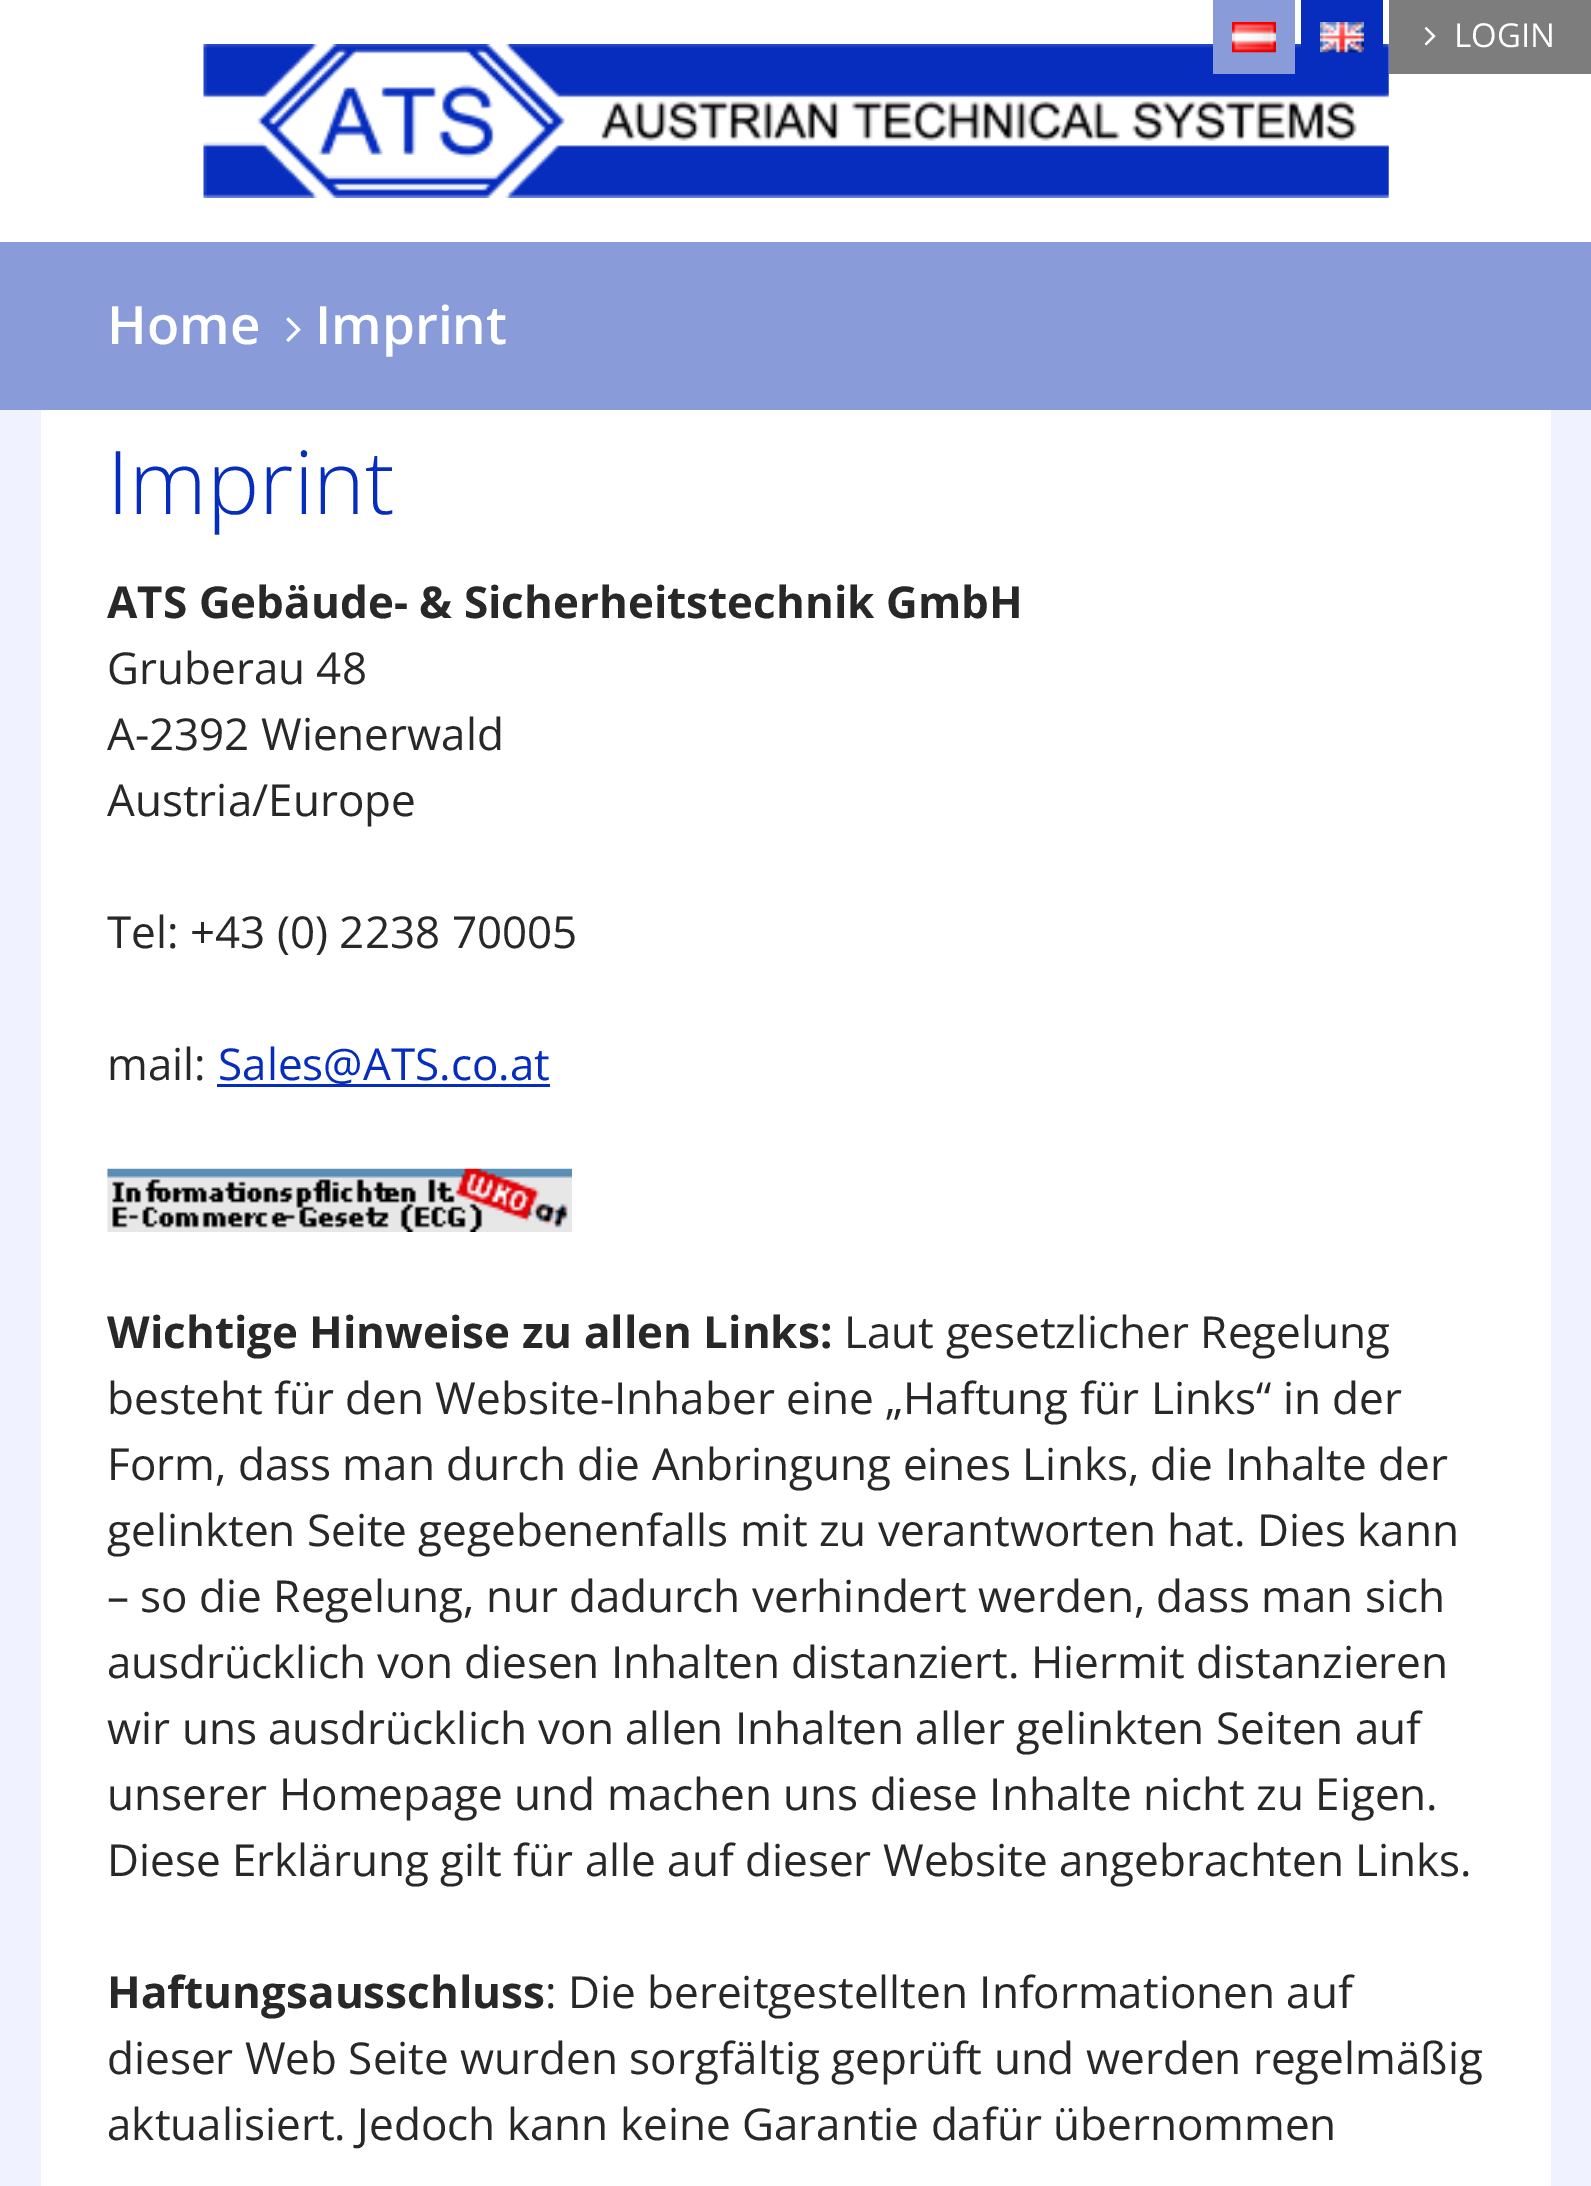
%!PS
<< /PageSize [1591 2186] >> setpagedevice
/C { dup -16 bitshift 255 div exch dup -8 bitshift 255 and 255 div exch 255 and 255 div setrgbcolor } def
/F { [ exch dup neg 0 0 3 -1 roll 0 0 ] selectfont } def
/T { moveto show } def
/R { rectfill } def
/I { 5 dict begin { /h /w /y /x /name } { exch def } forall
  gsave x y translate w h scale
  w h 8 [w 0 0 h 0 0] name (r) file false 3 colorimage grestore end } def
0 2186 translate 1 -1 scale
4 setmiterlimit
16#FFFFFF C
0 0 1591 2186 R
(4.rgb) 203 44 1186 154 I
16#8A9BD9 C
1213 0 82 74 R
(1.rgb) 1232 22 44 31 I
16#062DBE C
1301 0 82 48 R
(2.rgb) 1320 22 44 31 I
16#7D7D7D C
1389 0 202 74 R
(3.rgb) 1424 27 12 19 I
/OpenSans-Regular 33 F
16#FFFFFF C
(LOGIN) 1454 47 T
16#8A9BD9 C
0 242 1591 168 R
/OpenSans-SemiBold 53 F
16#FFFFFF C
(Home) 107 344 T
(5.rgb) 286 317 15 25 I
(Imprint) 315 344 T
16#F0F3FF C
0 410 1591 1776 R
16#FFFFFF C
41 410 1510 1776 R
/OpenSans-Light 88 F
16#062DBE C
(Imprint) 107 514 T
/OpenSans-Bold 44 F
16#282828 C
(ATS Gebäude- & Sicherheitstechnik GmbH) 107 618 T
/OpenSans-Regular 44 F
(Gruberau 48) 107 684 T
(A-2392 Wienerwald) 107 750 T
(Austria/Europe) 107 816 T
(Tel: +43 \(0\) 2238 70005) 107 948 T
(mail:) 107 1080 T
16#062DBE C
(Sales@ATS.co.at) 218 1080 T
217 1084 333 3 R
(6.rgb) 107 1168 465 64 I
/OpenSans-Bold 44 F
16#282828 C
(Wichtige Hinweise zu allen Links:) 107 1348 T
/OpenSans-Regular 44 F
(Laut gesetzlicher Regelung) 844 1348 T
(besteht für den Website-Inhaber eine „Haftung für Links“ in der) 107 1414 T
(Form, dass man durch die Anbringung eines Links, die Inhalte der) 107 1480 T
(gelinkten Seite gegebenenfalls mit zu verantworten hat. Dies kann) 107 1546 T
(– so die Regelung, nur dadurch verhindert werden, dass man sich) 107 1612 T
(ausdrücklich von diesen Inhalten distanziert. Hiermit distanzieren) 107 1678 T
(wir uns ausdrücklich von allen Inhalten aller gelinkten Seiten auf) 107 1744 T
(unserer Homepage und machen uns diese Inhalte nicht zu Eigen.) 107 1810 T
(Diese Erklärung gilt für alle auf dieser Website angebrachten Links.) 107 1876 T
/OpenSans-Bold 44 F
(Haftungsausschluss) 107 2008 T
/OpenSans-Regular 44 F
(: Die bereitgestellten Informationen auf) 545 2008 T
(dieser Web Seite wurden sorgfältig geprüft und werden regelmäßig) 107 2074 T
(aktualisiert. Jedoch kann keine Garantie dafür übernommen) 107 2140 T
showpage
